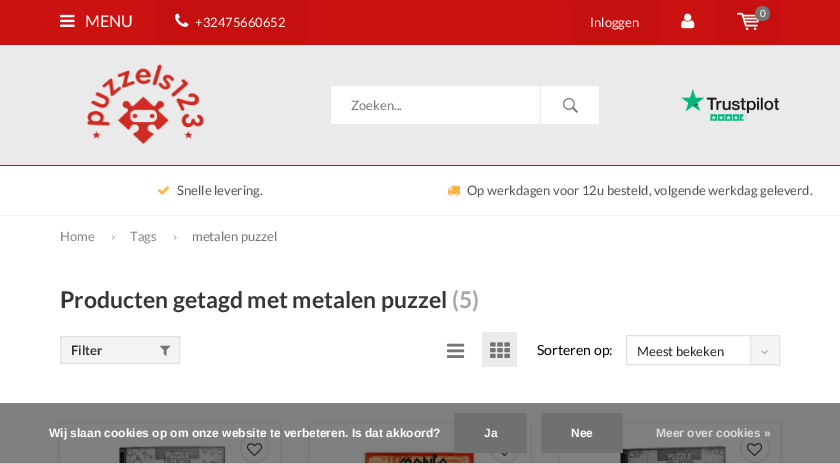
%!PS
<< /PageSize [840 464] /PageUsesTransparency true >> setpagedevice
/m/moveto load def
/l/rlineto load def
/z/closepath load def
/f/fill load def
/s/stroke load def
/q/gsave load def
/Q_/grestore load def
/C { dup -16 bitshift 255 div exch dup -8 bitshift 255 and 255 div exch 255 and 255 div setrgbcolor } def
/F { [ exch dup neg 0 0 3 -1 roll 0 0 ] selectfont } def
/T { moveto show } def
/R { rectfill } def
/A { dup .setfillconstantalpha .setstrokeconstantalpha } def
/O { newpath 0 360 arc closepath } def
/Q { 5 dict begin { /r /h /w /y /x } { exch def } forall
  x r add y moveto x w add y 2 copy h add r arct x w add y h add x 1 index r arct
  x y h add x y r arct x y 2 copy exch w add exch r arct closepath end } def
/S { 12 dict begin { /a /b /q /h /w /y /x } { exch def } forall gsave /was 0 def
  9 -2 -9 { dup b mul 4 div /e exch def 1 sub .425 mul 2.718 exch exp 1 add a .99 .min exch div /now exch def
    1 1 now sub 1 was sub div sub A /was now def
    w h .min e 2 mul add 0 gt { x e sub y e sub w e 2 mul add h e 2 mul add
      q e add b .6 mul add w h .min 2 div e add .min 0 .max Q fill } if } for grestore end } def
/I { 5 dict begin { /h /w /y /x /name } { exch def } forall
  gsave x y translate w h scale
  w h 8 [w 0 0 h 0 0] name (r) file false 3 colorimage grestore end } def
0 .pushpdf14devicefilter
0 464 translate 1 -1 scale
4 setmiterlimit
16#FFFFFF C
0 0 840 464 R
16#808080 C
0 403 840 60 R
16#CC1111 C
0 0 840 45 R
(1.rgb) 60 14 15 13 I
/Lato-Regular 16 F
16#FFFFFF C
(MENU) 85 27 T
16#C61010 C
155 0 151 44 R
(2.rgb) 175 13 14 14 I
/Lato-Regular 13 F
16#FFFFFF C
(+32475660652) 195 27 T
16#C61010 C
570 1 89 43 R
16#FFFFFF C
(Inloggen) 590 27 T
(3.rgb) 681 13 14 16 I
16#C61010 C
717 1 63 43 R
(4.rgb) 737 12 23 19 I
16#777475 C
762.5 13.5 7.5 O f
/Lato-Regular 10 F
16#FFFFFF C
(0) 760 17 T
16#EAEAEA C
0 45 840 120 R
16#CC1111 C
0 165 840 1 R
(5.rgb) 87 64 117 80 I
16#FFFFFF C
331 86 268 38 R
/Lato-Regular 13 F
16#757575 C
(Zoeken...) 351 110 T
16#EBEBEB C
540 85 1 40 R
(6.rgb) 563 98 15 15 I
(7.rgb) 681 89 99 32 I
16#EFEFEF C
0 215 840 1 R
(8.rgb) 157 186 13 9 I
16#525252 C
(Snelle levering.) 177 195 T
(9.rgb) 447 185 13 11 I
(Op werkdagen voor 12u besteld, volgende werkdag geleverd.) 467 195 T
16#858585 C
(Home) 60 241 T
(10.rgb) 112 235 3 5 I
(Tags) 130 241 T
(10.rgb) 174 235 3 5 I
16#757575 C
(metalen puzzel) 192 241 T
/Lato-Bold 23 F
16#363636 C
(Producten getagd met metalen puzzel) 60 308 T
16#A6A6A6 C
(\(5\)) 452 308 T
16#F3F3F3 C
60.5 336.5 m 119 0 l 0 27 l -119 0 l z q f Q_
16#E1E1E1 C
s
/Lato-Bold 13 F
16#363636 C
(Filter) 71 355 T
(11.rgb) 160 345 11 11 I
(12.rgb) 447 343 18 15 I
16#EBEBEB C
482 332 35 35 R
(13.rgb) 490 342 20 16 I
/Lato-Regular 14 F
16#000000 C
(Sorteren op:) 537 355 T
16#E1E1E1 C
626.5 335.5 153 29 rectstroke
/Lato-Regular 13 F
16#212121 C
(Meest bekeken) 637 356 T
0.8 A
16#F3F3F3 C
750 335 30 30 R
16#E1E1E1 C
750.5 335.5 29 29 rectstroke
1 A
(14.rgb) 761 350 7 4 I
q
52 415 m 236 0 l 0 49 l -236 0 l z 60 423 m 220 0 l 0 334 l -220 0 l z eoclip newpath
16#000000 C
61 424 218 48 0 2.5 .2 S
Q_
(15.rgb) 118 445 108 18 I
16#737373 C
255 448 14.5 O s
(16.rgb) 247 443 15 13 I
q
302 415 m 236 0 l 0 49 l -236 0 l z 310 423 m 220 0 l 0 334 l -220 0 l z eoclip newpath
16#000000 C
311 424 218 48 0 2.5 .2 S
Q_
(17.rgb) 362 447 116 16 I
505 448 14.5 O s
(18.rgb) 501 453 7 3 I
q
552 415 m 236 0 l 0 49 l -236 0 l z 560 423 m 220 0 l 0 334 l -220 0 l z eoclip newpath
16#000000 C
561 424 218 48 0 2.5 .2 S
Q_
(19.rgb) 619 445 108 18 I
755 448 14.5 O s
(16.rgb) 747 443 15 13 I
16#CCCCCC C
0 463 840 1 R
/LiberationSans-Bold 12 F
16#FFFFFF C
(Wij slaan cookies op om onze website te verbeteren. Is dat akkoord?) 49 437 T
16#707070 C
454 413 73 40 R
16#FFFFFF C
(Ja) 484 437 T
16#707070 C
541 413 82 40 R
16#FFFFFF C
(Nee) 571 437 T
16#D9D9D9 C
(Meer over cookies ») 656 437 T
.poppdf14devicefilter showpage
